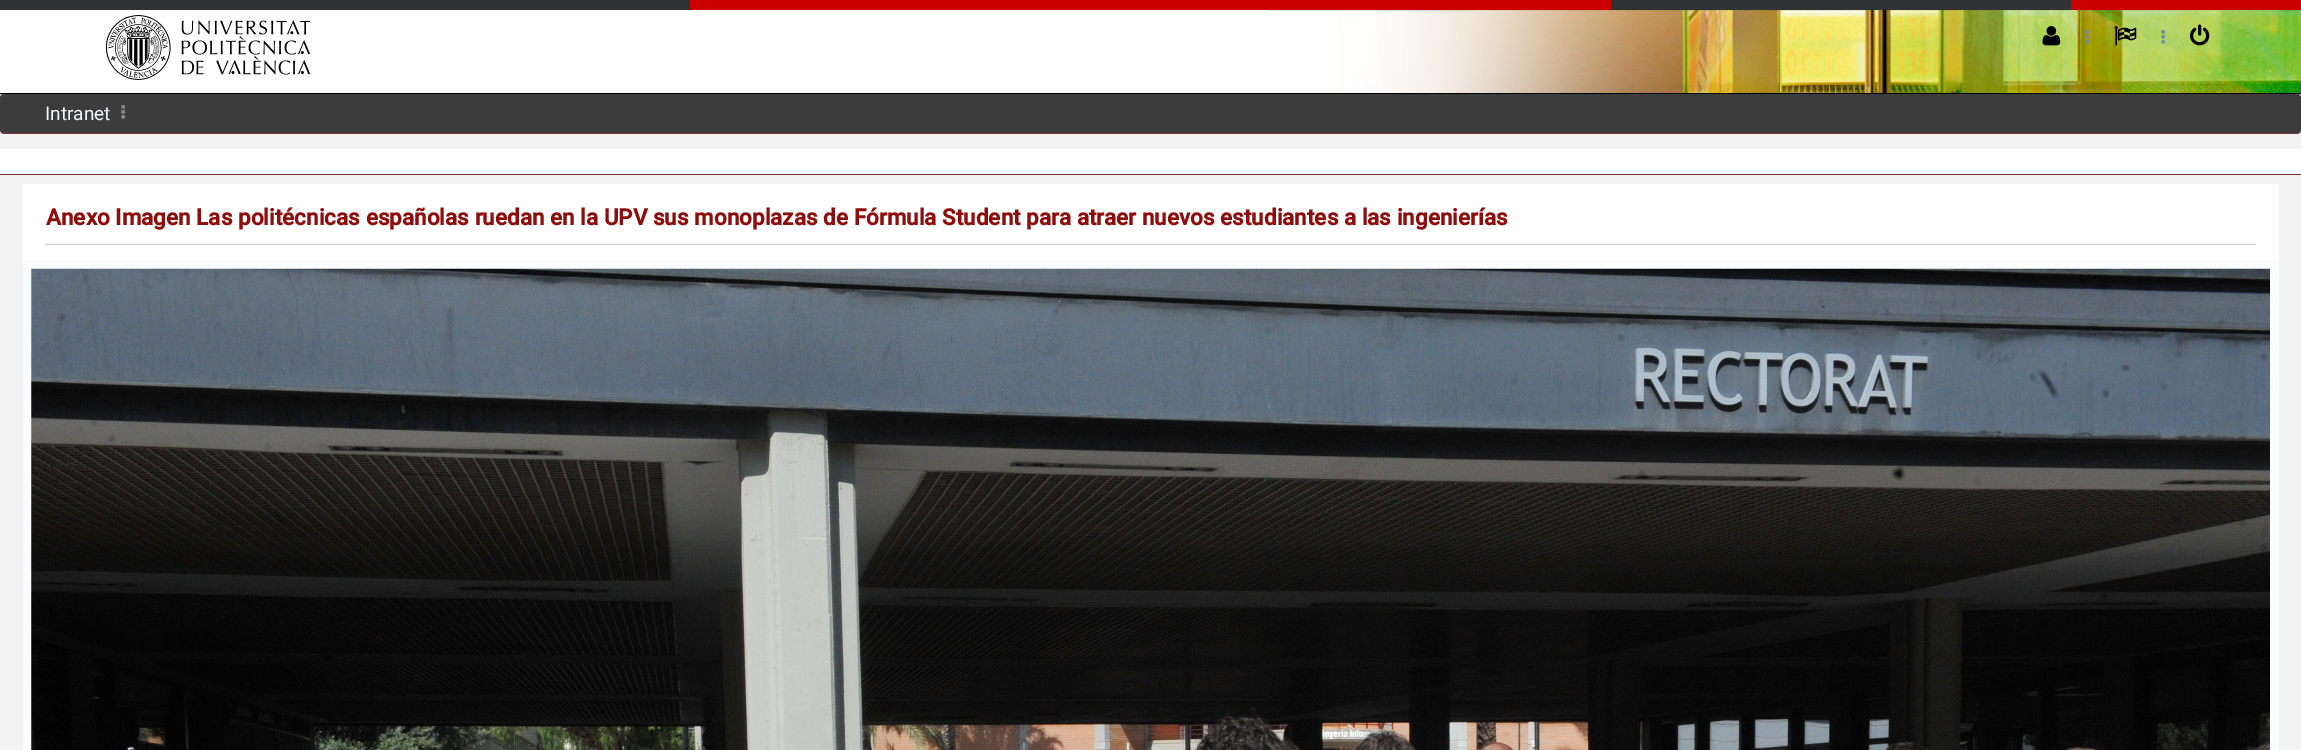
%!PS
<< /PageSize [2301 750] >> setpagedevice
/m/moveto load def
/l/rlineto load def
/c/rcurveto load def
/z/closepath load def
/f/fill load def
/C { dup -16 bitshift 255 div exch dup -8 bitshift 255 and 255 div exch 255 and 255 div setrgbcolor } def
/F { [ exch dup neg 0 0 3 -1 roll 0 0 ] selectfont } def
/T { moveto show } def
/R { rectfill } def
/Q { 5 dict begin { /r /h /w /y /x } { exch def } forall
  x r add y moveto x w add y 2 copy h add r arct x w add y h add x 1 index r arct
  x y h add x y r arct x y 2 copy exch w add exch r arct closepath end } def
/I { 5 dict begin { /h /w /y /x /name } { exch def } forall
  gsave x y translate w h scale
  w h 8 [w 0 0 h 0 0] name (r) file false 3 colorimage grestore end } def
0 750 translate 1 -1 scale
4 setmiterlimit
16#F3F3F3 C
0 0 2301 750 R
16#B8C1C9 C
0 94 2301 1 R
16#FFFFFF C
0 10 1269 83 R
(1.rgb) 1268 10 1033 83 I
16#000000 C
0 93 2301 1 R
16#CC0000 C
690 0 1611 10 R
16#313233 C
0 0 690 10 R
1611 0 460 10 R
(2.rgb) 105 15 206 65 I
(3.rgb) 2042 26 19 20 I
(4.rgb) 2085 30 4 14 I
(5.rgb) 2114 26 23 20 I
(6.rgb) 2161 30 4 14 I
(7.rgb) 2190 24 20 22 I
16#713B3B C
0 129 m 0 1 l 0 2 2 4 4 4 c 2293 0 l 2 0 4 -2 4 -4 c -1 2 -2 2 -3 2 c -2294 0 l -2 0 -4 -1 -4 -3 c z f
16#3C3C3C C
0 94 2301 39 4 Q f
/Roboto-Regular 19 F
16#F1F6F9 C
(Intranet) 45 120 T
(8.rgb) 121 105 4 14 I
16#713B3B C
0 174 2301 1 R
16#FFFFFF C
0 149 2301 25 R
23 184 2256 80 R
16#C3CCD5 C
45 244 2211 1 R
/Roboto-Bold 22.5 F
16#900D0D C
(Anexo Imagen Las politécnicas españolas ruedan en la UPV sus monoplazas de Fórmula Student para atraer nuevos estudiantes a las ingenierías) 46 225 T
16#FBFCFD C
23 260 2256 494 4 Q f
(9.rgb) 31 268 2239 482 I
showpage
